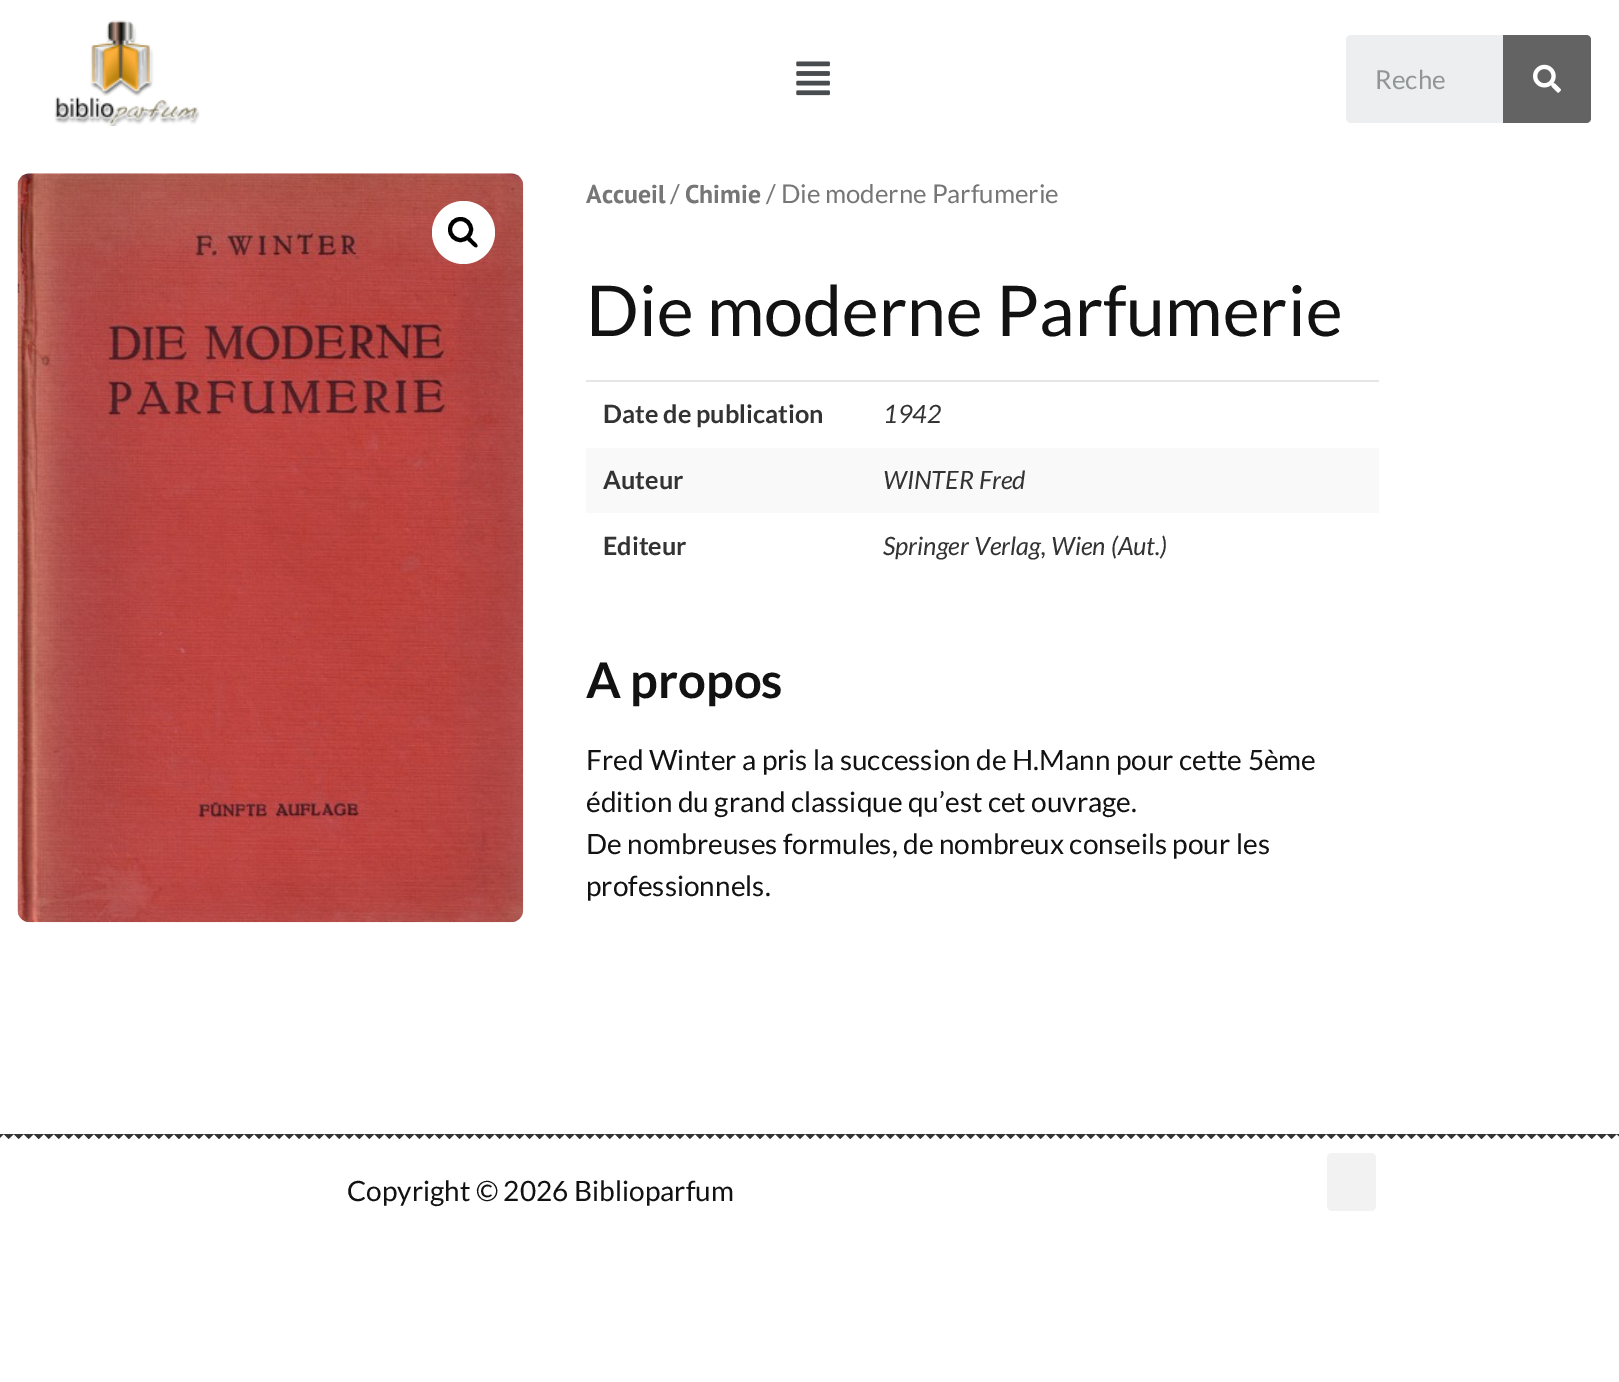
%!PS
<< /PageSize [1619 1382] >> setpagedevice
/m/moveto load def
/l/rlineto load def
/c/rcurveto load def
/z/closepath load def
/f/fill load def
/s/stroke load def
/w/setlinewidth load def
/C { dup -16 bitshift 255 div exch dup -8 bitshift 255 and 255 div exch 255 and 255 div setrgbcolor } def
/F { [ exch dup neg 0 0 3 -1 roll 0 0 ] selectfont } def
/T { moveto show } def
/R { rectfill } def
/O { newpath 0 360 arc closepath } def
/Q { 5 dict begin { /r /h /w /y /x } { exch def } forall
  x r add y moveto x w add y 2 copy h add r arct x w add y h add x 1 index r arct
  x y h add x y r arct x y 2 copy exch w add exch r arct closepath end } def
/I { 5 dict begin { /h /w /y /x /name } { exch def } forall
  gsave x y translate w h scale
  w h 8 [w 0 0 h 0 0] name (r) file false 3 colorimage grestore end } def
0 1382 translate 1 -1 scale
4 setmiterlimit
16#FFFFFF C
0 0 1619 1382 R
(1.rgb) 54 20 146 106 I
(2.rgb) 796 61 34 35 I
16#ECEEEF C
1346 35 245 88 5 Q f
/Lato-Regular 26 F
16#919597 C
(Reche) 1375 89 T
16#636363 C
1503 35 m 83 0 l 3 0 5 2 5 5 c 0 78 l 0 3 -2 5 -5 5 c -83 0 l z f
(3.rgb) 1533 64 28 29 I
(4.rgb) 17 173 507 750 I
16#FFFFFF C
463.5 232.5 31.5 O f
16#000000 C
4 w
460.5 229.5 10.5 O s
467 237 m 2 -2 5 2.5 6 3.5 c 1 1 6 4.5 4 6.5 c -2 1.5 -5.5 -3 -6.5 -4 c -1 -1 -5.5 -4 -3.5 -6 c z f
/PTSans-Bold 25.75 F
16#767676 C
(Accueil) 586 203 T
/Lato-Regular 25.75 F
(/) 670 203 T
/PTSans-Bold 25.75 F
(Chimie) 685 203 T
/Lato-Regular 25.75 F
(/ Die moderne Parfumerie) 766 203 T
/Lato-Regular 70 F
16#121212 C
(Die moderne Parfumerie) 586 336 T
16#E6E6E6 C
586 380 793 2 R
/Lato-Bold 25.25 F
16#333333 C
(Date de publication) 603 423 T
/Lato-Italic 25.25 F
(1942) 883 423 T
16#F9F9F9 C
586 448 793 65 R
/Lato-Bold 25.25 F
16#333333 C
(Auteur) 603 489 T
/Lato-Italic 25.25 F
(WINTER Fred) 883 489 T
/Lato-Bold 25.25 F
(Editeur) 603 555 T
/Lato-Italic 25.25 F
(Springer Verlag, Wien \(Aut.\)) 883 555 T
/Lato-Bold 49 F
16#121212 C
(A propos) 586 698 T
/Lato-Regular 28 F
(Fred Winter a pris la succession de H.Mann pour cette 5ème) 586 770 T
(édition du grand classique qu’est cet ouvrage.) 586 812 T
(De nombreuses formules, de nombreux conseils pour les) 586 854 T
(professionnels.) 586 896 T
(5.rgb) 0 1134 1619 5 I
(Copyright © 2026 Biblioparfum) 347 1201 T
16#F2F2F2 C
1327 1153 49 58 5 Q f
showpage
